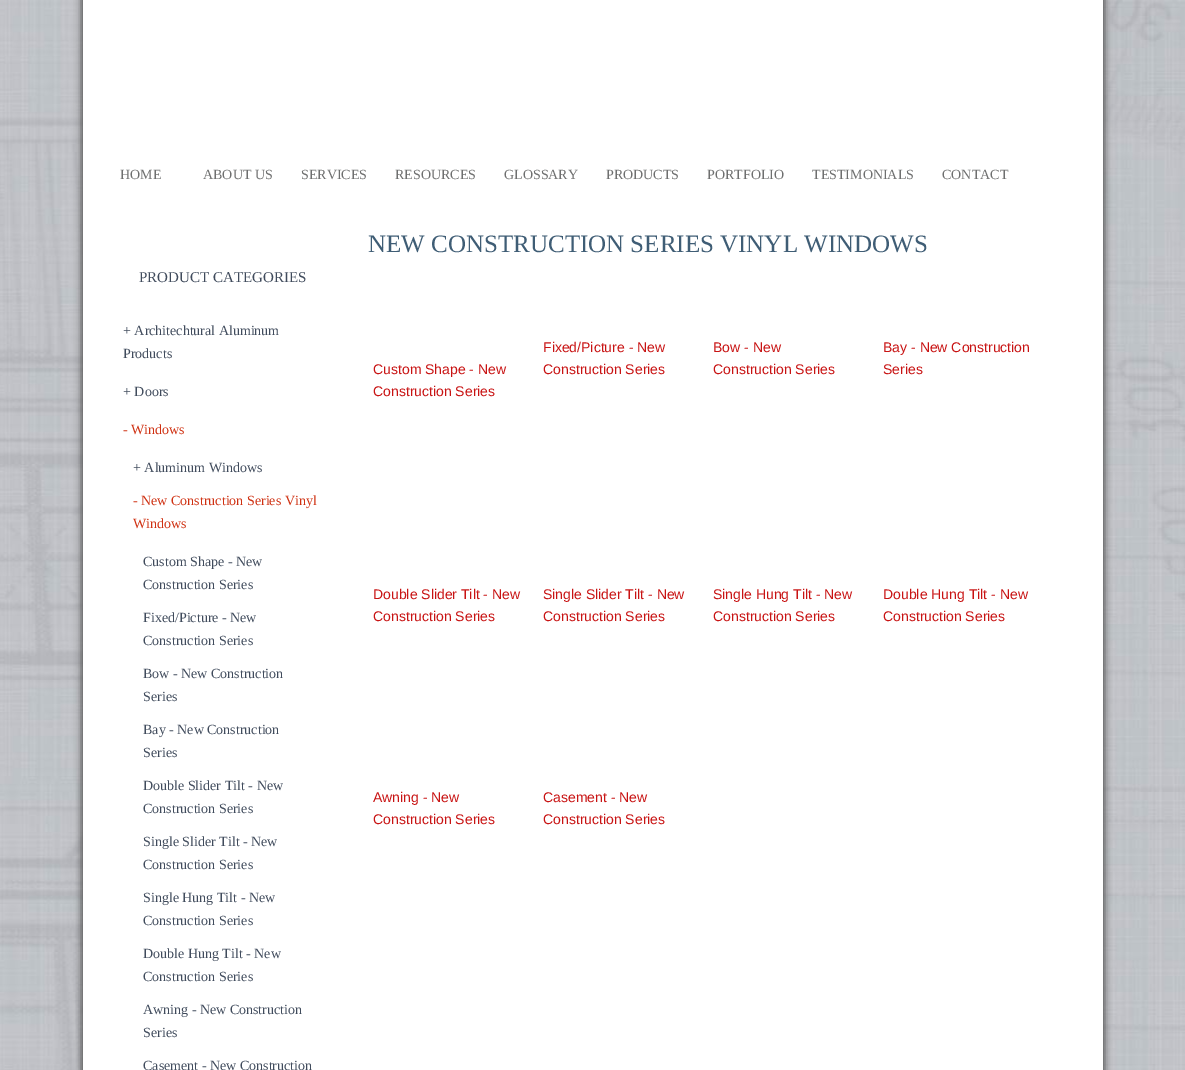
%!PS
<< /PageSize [1185 1070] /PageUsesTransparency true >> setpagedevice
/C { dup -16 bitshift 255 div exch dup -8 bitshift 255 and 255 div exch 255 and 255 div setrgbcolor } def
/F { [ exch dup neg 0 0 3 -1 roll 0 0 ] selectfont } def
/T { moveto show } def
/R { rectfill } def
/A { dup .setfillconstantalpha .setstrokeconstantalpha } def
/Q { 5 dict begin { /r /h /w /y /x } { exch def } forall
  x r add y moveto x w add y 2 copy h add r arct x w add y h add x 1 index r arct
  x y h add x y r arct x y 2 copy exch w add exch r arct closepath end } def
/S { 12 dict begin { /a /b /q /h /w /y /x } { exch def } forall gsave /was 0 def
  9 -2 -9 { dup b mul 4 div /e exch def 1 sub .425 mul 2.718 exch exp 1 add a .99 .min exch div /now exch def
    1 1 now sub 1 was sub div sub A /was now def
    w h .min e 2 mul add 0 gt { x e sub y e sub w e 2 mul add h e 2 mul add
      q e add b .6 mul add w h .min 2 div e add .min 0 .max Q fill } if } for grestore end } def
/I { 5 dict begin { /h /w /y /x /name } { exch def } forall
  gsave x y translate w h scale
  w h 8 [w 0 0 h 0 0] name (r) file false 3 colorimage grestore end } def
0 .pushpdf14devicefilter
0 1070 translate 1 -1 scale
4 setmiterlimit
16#FFFFFF C
0 0 1185 1070 R
(1.rgb) 0 0 1185 1070 I
16#565656 C
81 -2 1024 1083 0 3.5 1 S
16#FFFFFF C
83 0 1020 1070 R
/LiberationSerif-Regular 14 F
16#6E6F6F C
(HOME) 120 179 T
(ABOUT US) 203 179 T
(SERVICES) 301 179 T
(RESOURCES) 395 179 T
(GLOSSARY) 504 179 T
(PRODUCTS) 606 179 T
(PORTFOLIO) 707 179 T
(TESTIMONIALS) 812 179 T
(CONTACT) 942 179 T
/LiberationSerif-Regular 15 F
16#404B5C C
(PRODUCT CATEGORIES) 139 282 T
/LiberationSerif-Regular 14 F
(+ Architechtural Aluminum) 123 335 T
(Products) 123 358 T
(+ Doors) 123 396 T
16#CF3011 C
(- Windows) 123 434 T
16#404B5C C
(+ Aluminum Windows) 133 472 T
16#CF3011 C
(- New Construction Series Vinyl) 133 505 T
(Windows) 133 528 T
16#404B5C C
(Custom Shape - New) 143 566 T
(Construction Series) 143 589 T
(Fixed/Picture - New) 143 622 T
(Construction Series) 143 645 T
(Bow - New Construction) 143 678 T
(Series) 143 701 T
(Bay - New Construction) 143 734 T
(Series) 143 757 T
(Double Slider Tilt - New) 143 790 T
(Construction Series) 143 813 T
(Single Slider Tilt - New) 143 846 T
(Construction Series) 143 869 T
(Single Hung Tilt - New) 143 902 T
(Construction Series) 143 925 T
(Double Hung Tilt - New) 143 958 T
(Construction Series) 143 981 T
(Awning - New Construction) 143 1014 T
(Series) 143 1037 T
(Casement - New Construction) 143 1070 T
/LiberationSerif-Regular 25 F
16#3F5D75 C
(NEW CONSTRUCTION SERIES VINYL WINDOWS) 368 252 T
/LiberationSans-Regular 14 F
16#C81313 C
(Fixed/Picture - New) 543 352 T
(Construction Series) 543 374 T
(Bow - New) 713 352 T
(Construction Series) 713 374 T
(Bay - New Construction) 883 352 T
(Series) 883 374 T
(Custom Shape - New) 373 374 T
(Construction Series) 373 396 T
(Double Slider Tilt - New) 373 599 T
(Construction Series) 373 621 T
(Single Slider Tilt - New) 543 599 T
(Construction Series) 543 621 T
(Single Hung Tilt - New) 713 599 T
(Construction Series) 713 621 T
(Double Hung Tilt - New) 883 599 T
(Construction Series) 883 621 T
(Awning - New) 373 802 T
(Construction Series) 373 824 T
(Casement - New) 543 802 T
(Construction Series) 543 824 T
.poppdf14devicefilter showpage
